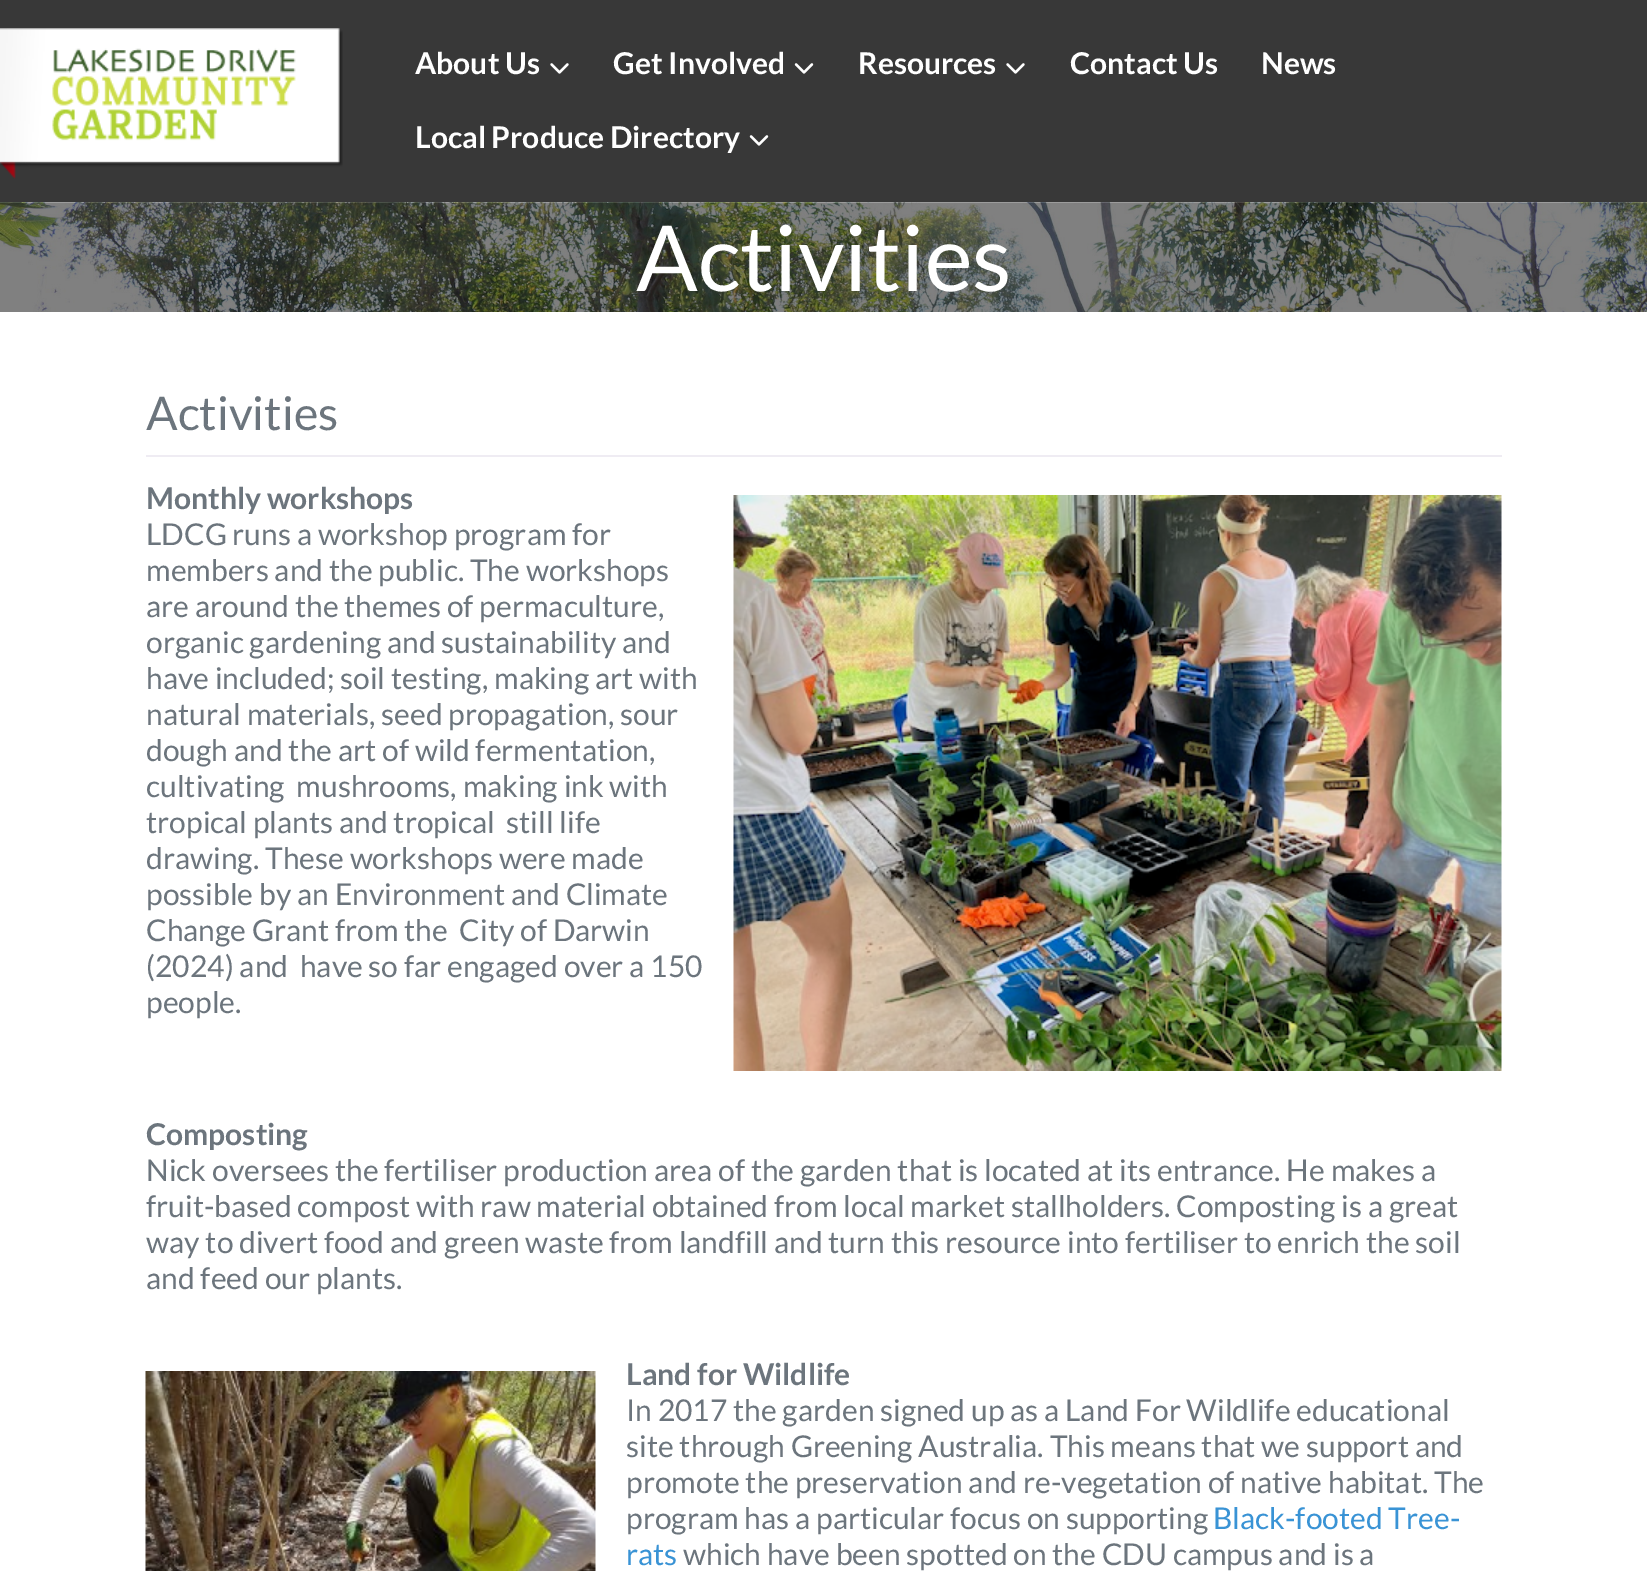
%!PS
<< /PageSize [1647 1571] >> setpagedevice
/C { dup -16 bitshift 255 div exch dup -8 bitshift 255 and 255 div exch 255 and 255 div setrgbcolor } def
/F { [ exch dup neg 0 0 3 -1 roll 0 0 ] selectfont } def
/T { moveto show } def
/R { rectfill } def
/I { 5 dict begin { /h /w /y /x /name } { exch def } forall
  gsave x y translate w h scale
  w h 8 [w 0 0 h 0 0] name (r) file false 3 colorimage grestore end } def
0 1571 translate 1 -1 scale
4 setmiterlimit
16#FFFFFF C
0 0 1647 1571 R
16#383838 C
0 0 1647 203 R
(1.rgb) 0 28 343 151 I
/Lato-Bold 30 F
16#FFFFFF C
(About Us) 415 74 T
(2.rgb) 550 63 19 11 I
(Get Involved) 613 74 T
(3.rgb) 794 63 20 11 I
(Resources) 858 74 T
(2.rgb) 1006 63 19 11 I
(Contact Us) 1070 74 T
(News) 1261 74 T
(Local Produce Directory) 415 148 T
(3.rgb) 749 135 20 11 I
(4.rgb) 0 202 1647 110 I
/Lato-Regular 91 F
(Activities) 636 291 T
16#EFECF3 C
146 455 1356 2 R
/Lato-Regular 46.5 F
16#6C757D C
(Activities) 146 430 T
/Lato-Bold 30 F
(Monthly workshops) 146 509 T
/Lato-Regular 30 F
(LDCG runs a workshop program for) 146 545 T
(members and the public. The workshops) 146 581 T
(are around the themes of permaculture,) 146 617 T
(organic gardening and sustainability and) 146 653 T
(have included; soil testing, making art with) 146 689 T
(natural materials, seed propagation, sour) 146 725 T
(dough and the art of wild fermentation,) 146 761 T
(cultivating  mushrooms, making ink with) 146 797 T
(tropical plants and tropical  still life) 146 833 T
(drawing. These workshops were made) 146 869 T
(possible by an Environment and Climate) 146 905 T
(Change Grant from the  City of Darwin) 146 941 T
(\(2024\) and  have so far engaged over a 150) 146 977 T
(people.) 146 1013 T
(5.rgb) 733 495 769 576 I
/Lato-Bold 30 F
(Composting) 146 1145 T
/Lato-Regular 30 F
(Nick oversees the fertiliser production area of the garden that is located at its entrance. He makes a) 146 1181 T
(fruit-based compost with raw material obtained from local market stallholders. Composting is a great) 146 1217 T
(way to divert food and green waste from landfill and turn this resource into fertiliser to enrich the soil) 146 1253 T
(and feed our plants.) 146 1289 T
(6.rgb) 145 1371 451 200 I
/Lato-Bold 30 F
(Land for Wildlife) 626 1385 T
/Lato-Regular 30 F
(In 2017 the garden signed up as a Land For Wildlife educational) 626 1421 T
(site through Greening Australia. This means that we support and) 626 1457 T
(promote the preservation and re-vegetation of native habitat. The) 626 1493 T
(program has a particular focus on supporting) 626 1529 T
16#3993D5 C
(Black-footed Tree-) 1213 1529 T
(rats) 626 1565 T
16#6C757D C
(which have been spotted on the CDU campus and is a) 683 1565 T
showpage
